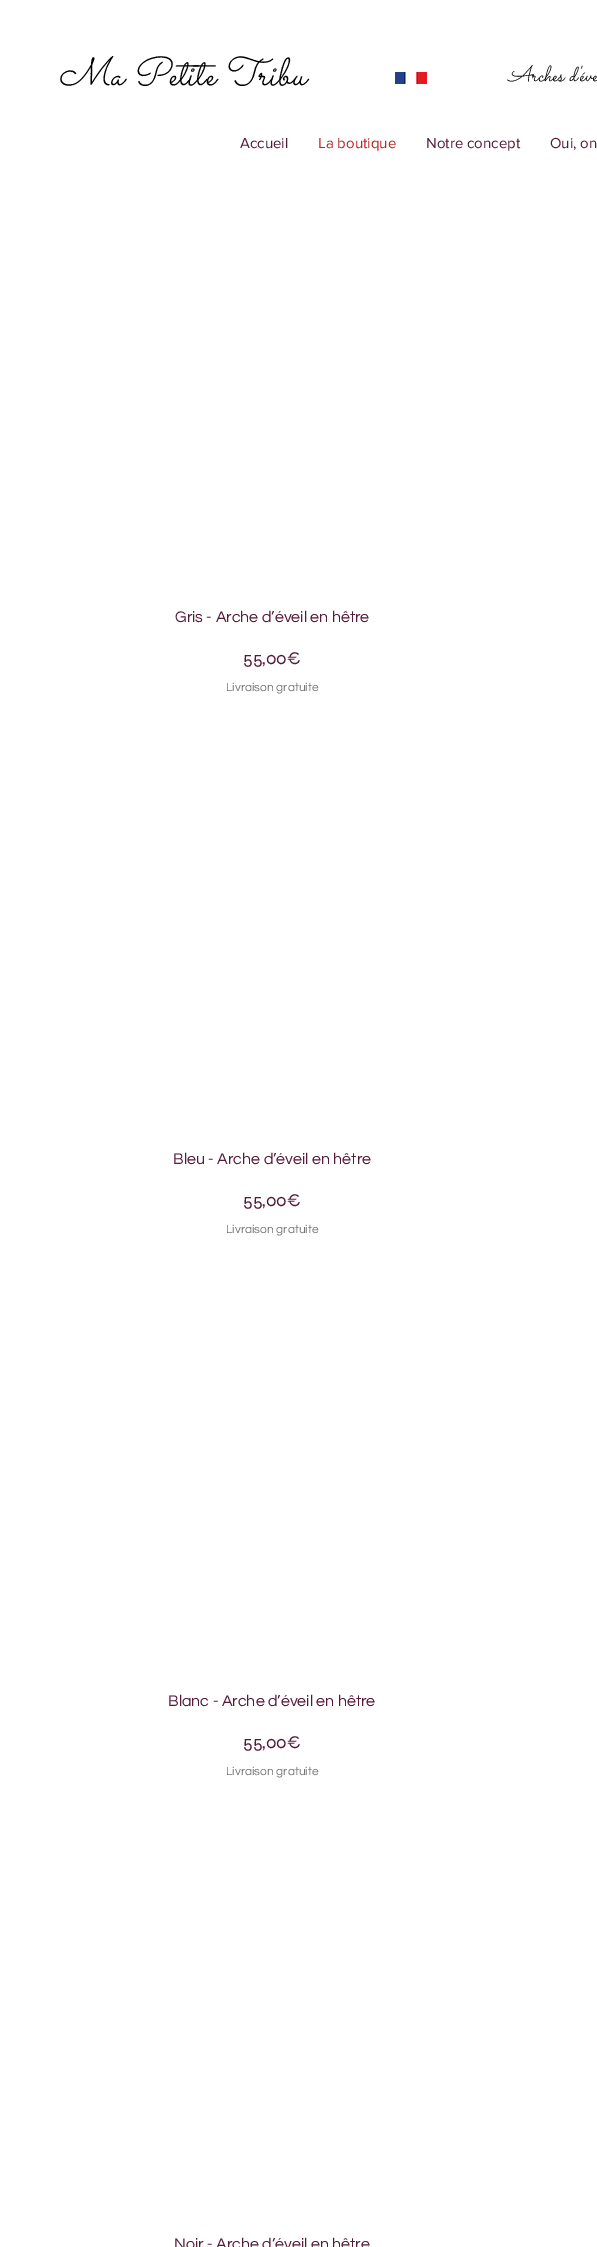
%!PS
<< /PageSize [597 2247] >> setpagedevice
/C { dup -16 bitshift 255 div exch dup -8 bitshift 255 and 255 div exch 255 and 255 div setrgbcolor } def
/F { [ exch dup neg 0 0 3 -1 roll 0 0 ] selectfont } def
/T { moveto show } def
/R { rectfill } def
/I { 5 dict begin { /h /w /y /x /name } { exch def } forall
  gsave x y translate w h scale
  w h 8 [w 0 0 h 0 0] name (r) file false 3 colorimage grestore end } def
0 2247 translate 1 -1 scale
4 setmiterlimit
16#FFFFFF C
0 0 597 2247 R
/Sacramento-Italic 39 F
16#000000 C
(Ma Petite Tribu) 58 85 T
(1.rgb) 395 72 32 12 I
/Sacramento-Italic 22 F
(Arches d'éve) 508 81 T
/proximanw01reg-Regular 15 F
16#551A3A C
(Accueil) 240 148 T
16#BB2423 C
(La boutique) 318 148 T
16#551A3A C
(Notre concept) 426 148 T
(Oui, on) 550 148 T
/Questrial-Regular 16 F
(Gris - Arche d’éveil en hêtre) 175 622 T
/Syne-Regular 18 F
(55,00€) 243 664 T
/Questrial-Regular 12 F
16#757575 C
(Livraison gratuite) 226 691 T
/Questrial-Regular 16 F
16#551A3A C
(Bleu - Arche d’éveil en hêtre) 173 1164 T
/Syne-Regular 18 F
(55,00€) 243 1206 T
/Questrial-Regular 12 F
16#757575 C
(Livraison gratuite) 226 1233 T
/Questrial-Regular 16 F
16#551A3A C
(Blanc - Arche d’éveil en hêtre) 168 1706 T
/Syne-Regular 18 F
(55,00€) 243 1748 T
/Questrial-Regular 12 F
16#757575 C
(Livraison gratuite) 226 1775 T
/Questrial-Regular 16 F
16#551A3A C
(Noir - Arche d’éveil en hêtre) 174 2249 T
showpage
